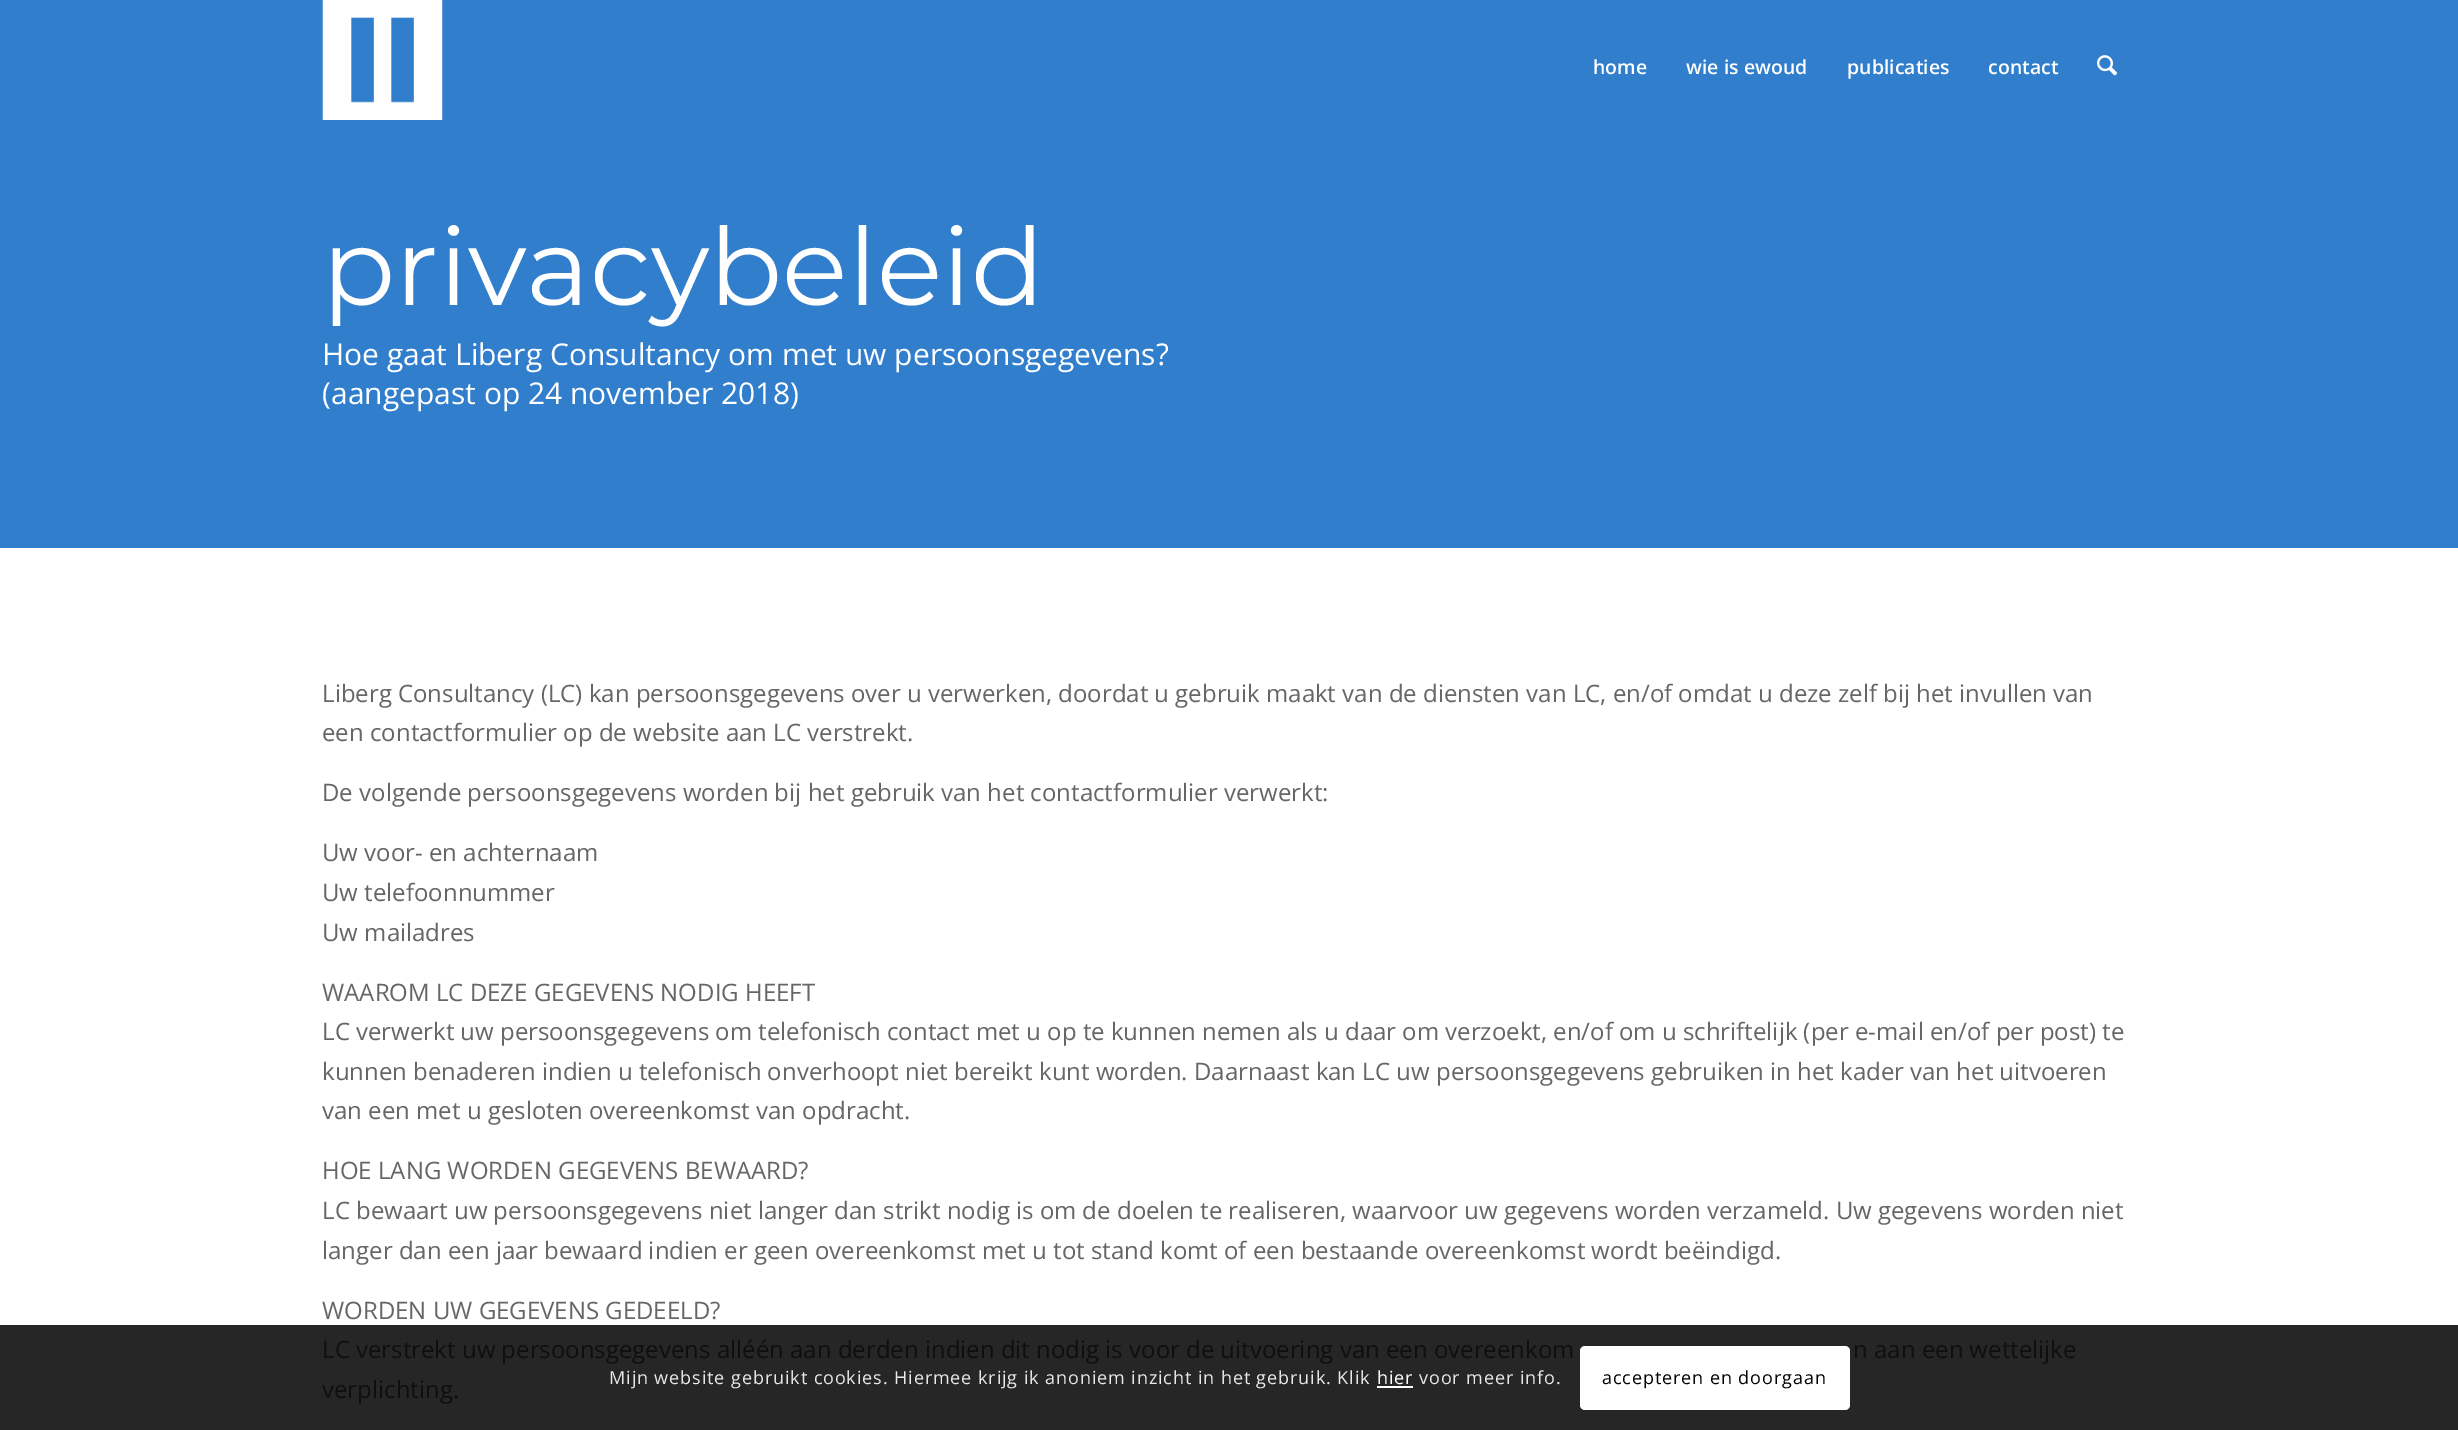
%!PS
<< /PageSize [2458 1430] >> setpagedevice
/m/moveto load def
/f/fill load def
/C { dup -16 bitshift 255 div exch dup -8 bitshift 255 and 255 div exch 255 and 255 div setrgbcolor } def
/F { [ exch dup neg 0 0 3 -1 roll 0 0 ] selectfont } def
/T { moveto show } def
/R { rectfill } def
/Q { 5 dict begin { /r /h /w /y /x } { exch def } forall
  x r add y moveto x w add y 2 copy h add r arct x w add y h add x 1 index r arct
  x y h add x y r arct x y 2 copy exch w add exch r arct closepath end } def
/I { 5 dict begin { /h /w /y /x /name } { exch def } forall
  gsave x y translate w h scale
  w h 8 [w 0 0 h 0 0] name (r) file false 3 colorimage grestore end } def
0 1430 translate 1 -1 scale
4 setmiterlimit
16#FFFFFF C
0 0 2458 1430 R
16#262626 C
0 1325 2458 105 R
16#307ECC C
0 0 2458 548 R
(1.rgb) 322 0 121 120 I
/OpenSans-SemiBold 19.5 F
16#FFFFFF C
(home) 1593 74 T
(wie is ewoud) 1686 74 T
(publicaties) 1847 74 T
(contact) 1988 74 T
(2.rgb) 2097 55 21 21 I
/Montserrat-Thin 108 F
(privacybeleid) 322 305 T
/OpenSans-Regular 30 F
(Hoe gaat Liberg Consultancy om met uw persoonsgegevens?) 322 365 T
(\(aangepast op 24 november 2018\)) 322 404 T
/OpenSans-Regular 24 F
16#666666 C
(Liberg Consultancy \(LC\) kan persoonsgegevens over u verwerken, doordat u gebruik maakt van de diensten van LC, en/of omdat u deze zelf bij het invullen van) 322 702 T
(een contactformulier op de website aan LC verstrekt.) 322 741 T
(De volgende persoonsgegevens worden bij het gebruik van het contactformulier verwerkt:) 322 801 T
(Uw voor- en achternaam) 322 861 T
(Uw telefoonnummer) 322 901 T
(Uw mailadres) 322 941 T
(WAAROM LC DEZE GEGEVENS NODIG HEEFT) 322 1001 T
(LC verwerkt uw persoonsgegevens om telefonisch contact met u op te kunnen nemen als u daar om verzoekt, en/of om u schriftelijk \(per e-mail en/of per post\) te) 322 1040 T
(kunnen benaderen indien u telefonisch onverhoopt niet bereikt kunt worden. Daarnaast kan LC uw persoonsgegevens gebruiken in het kader van het uitvoeren) 322 1080 T
(van een met u gesloten overeenkomst van opdracht.) 322 1119 T
(HOE LANG WORDEN GEGEVENS BEWAARD?) 322 1179 T
(LC bewaart uw persoonsgegevens niet langer dan strikt nodig is om de doelen te realiseren, waarvoor uw gegevens worden verzameld. Uw gegevens worden niet) 322 1219 T
(langer dan een jaar bewaard indien er geen overeenkomst met u tot stand komt of een bestaande overeenkomst wordt beëindigd.) 322 1259 T
(WORDEN UW GEGEVENS GEDEELD?) 322 1319 T
16#0F0F0F C
(LC verstrekt uw persoonsgegevens alléén aan derden indien dit nodig is voor de uitvoering van een overeenkom) 322 1358 T
(n aan een wettelijke) 1853 1358 T
(verplichting.) 322 1398 T
/OpenSans-Regular 18 F
16#E9E9E9 C
609 1384 m .9 0 (Mijn website gebruikt cookies. Hiermee krijg ik anoniem inzicht in het gebruik. Klik) ashow
16#FFFFFF C
1377 1384 m .9 0 (hier) ashow
1377 1386 36 2 R
16#E9E9E9 C
1419 1384 m .9 0 (voor meer info.) ashow
16#FFFFFF C
1580 1346 270 64 5 Q f
16#000000 C
1602 1384 m .9 0 (accepteren en doorgaan) ashow
showpage
